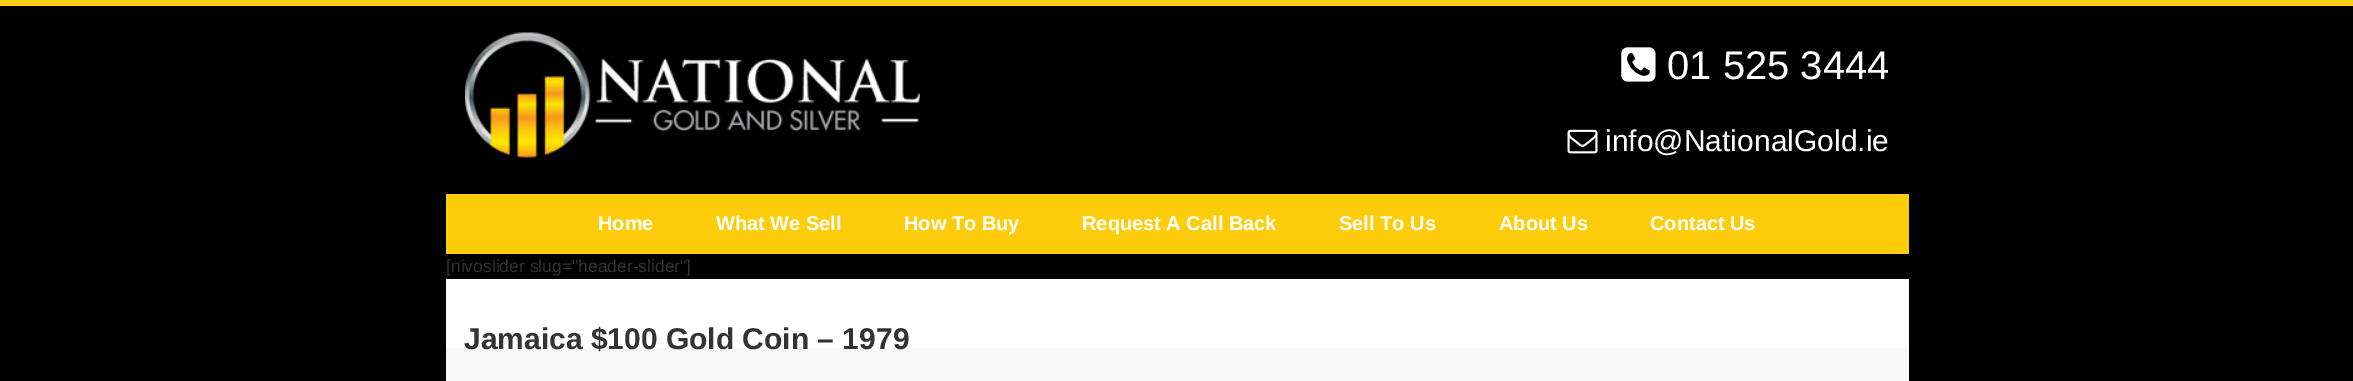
%!PS
<< /PageSize [2353 381] >> setpagedevice
/C { dup -16 bitshift 255 div exch dup -8 bitshift 255 and 255 div exch 255 and 255 div setrgbcolor } def
/F { [ exch dup neg 0 0 3 -1 roll 0 0 ] selectfont } def
/T { moveto show } def
/R { rectfill } def
/I { 5 dict begin { /h /w /y /x /name } { exch def } forall
  gsave x y translate w h scale
  w h 8 [w 0 0 h 0 0] name (r) file false 3 colorimage grestore end } def
0 381 translate 1 -1 scale
4 setmiterlimit
16#000000 C
0 0 2353 381 R
16#FDCD0B C
0 0 2353 6 R
(1.rgb) 465 32 455 126 I
(2.rgb) 1621 47 35 35 I
/Arimo-Regular 40 F
16#FFFFFF C
(01 525 3444) 1667 79 T
(3.rgb) 1567 129 31 25 I
/Arimo-Regular 30 F
(info@NationalGold.ie) 1605 151 T
16#FDCD0B C
446 194 1463 60 R
/Arimo-Bold 20 F
16#FFFFFF C
(Home) 598 230 T
(What We Sell) 716 230 T
(How To Buy) 904 230 T
(Request A Call Back) 1082 230 T
(Sell To Us) 1339 230 T
(About Us) 1499 230 T
(Contact Us) 1650 230 T
/Arimo-Regular 17.5 F
16#333333 C
([nivoslider slug="header-slider"]) 446 272 T
16#FFFFFF C
446 279 1463 69 R
16#F8F8F8 C
446 348 1463 33 R
/Arimo-Bold 30 F
16#333333 C
(Jamaica $100 Gold Coin – 1979) 464 349 T
showpage
